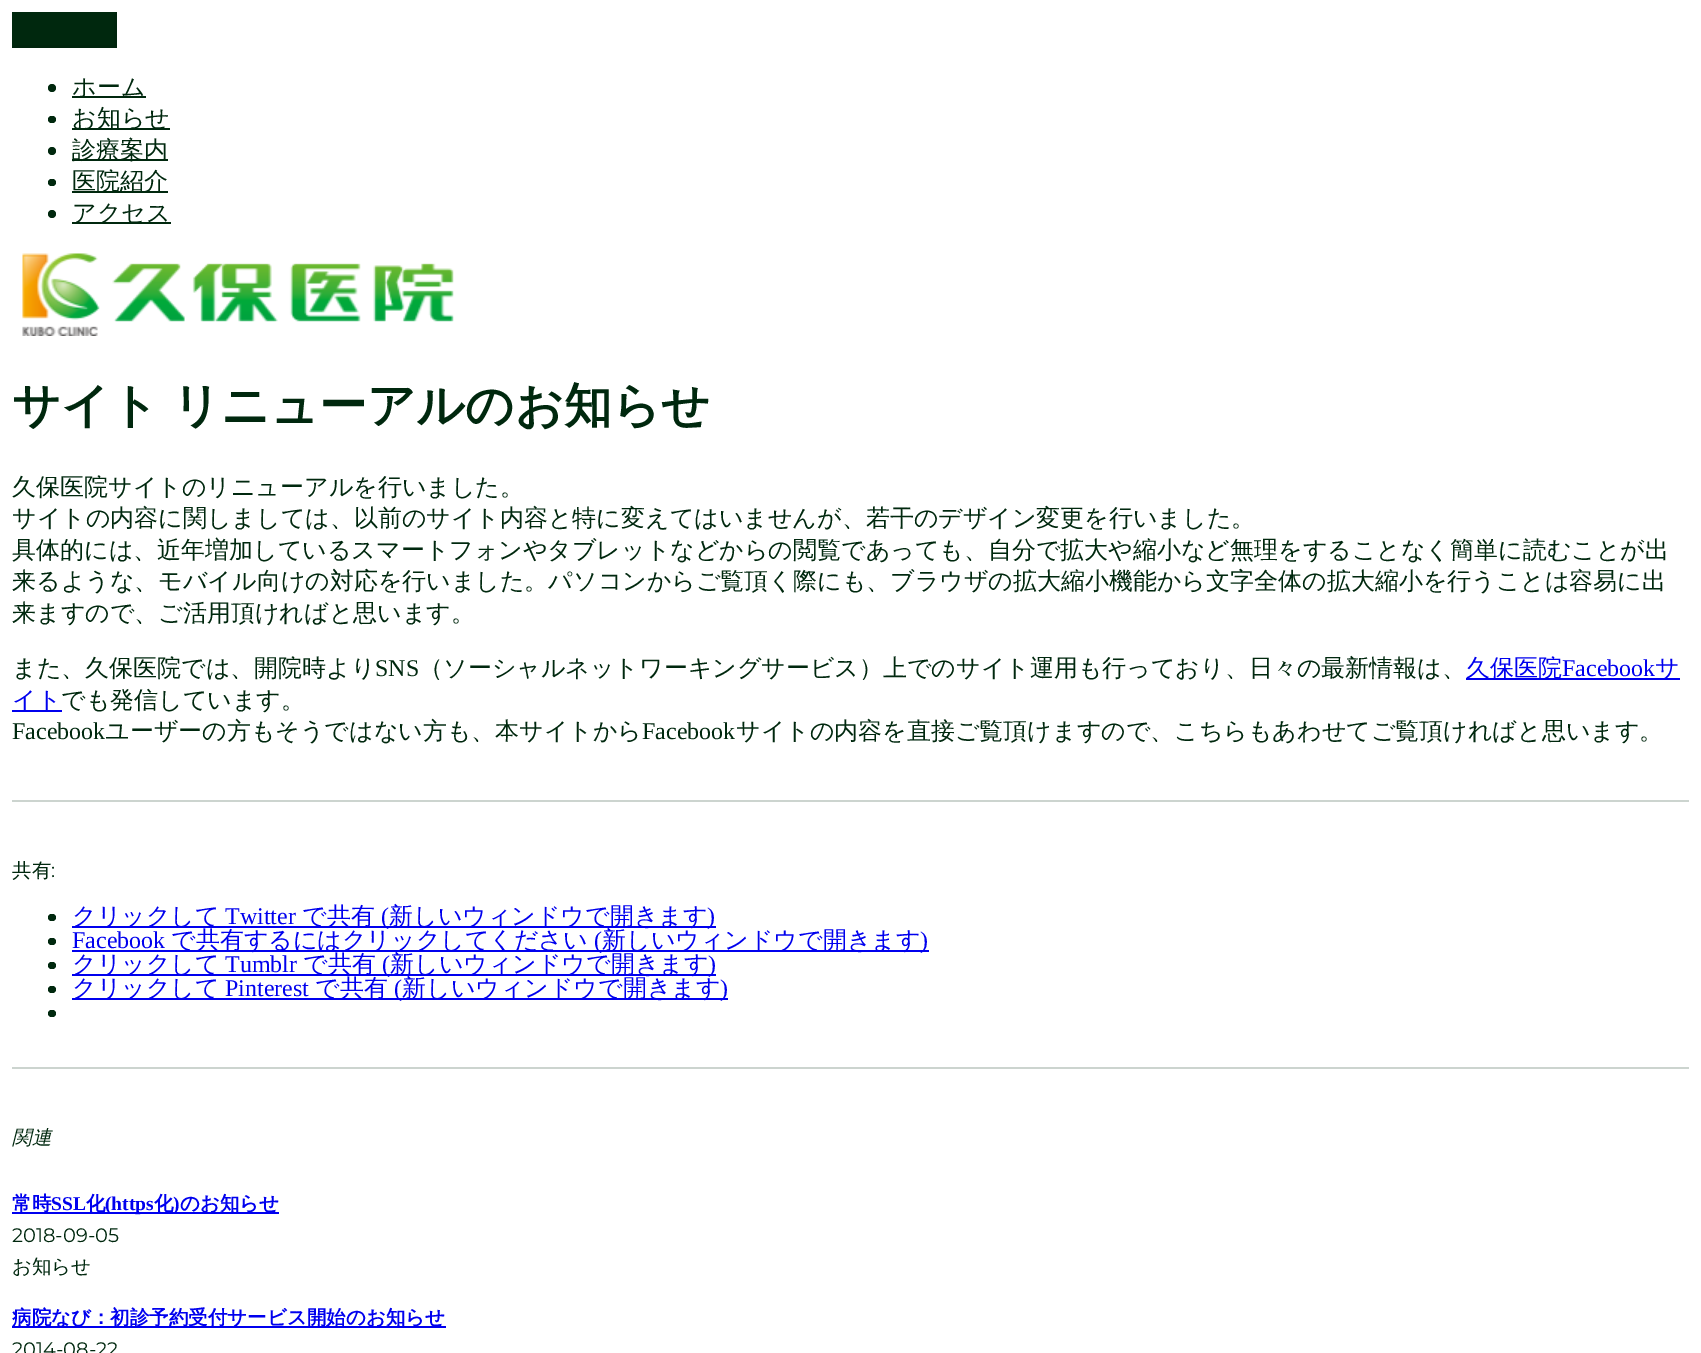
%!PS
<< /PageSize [1701 1353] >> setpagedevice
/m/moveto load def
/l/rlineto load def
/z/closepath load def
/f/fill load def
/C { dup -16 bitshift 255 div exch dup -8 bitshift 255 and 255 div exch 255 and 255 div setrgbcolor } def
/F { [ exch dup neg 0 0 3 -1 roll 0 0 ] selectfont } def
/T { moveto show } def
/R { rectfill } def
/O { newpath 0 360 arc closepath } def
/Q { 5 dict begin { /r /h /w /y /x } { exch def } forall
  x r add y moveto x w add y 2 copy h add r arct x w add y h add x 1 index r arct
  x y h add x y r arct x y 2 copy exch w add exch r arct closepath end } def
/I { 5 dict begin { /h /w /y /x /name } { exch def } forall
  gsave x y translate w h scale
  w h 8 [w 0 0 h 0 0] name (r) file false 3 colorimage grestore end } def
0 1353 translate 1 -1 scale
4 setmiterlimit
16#FFFFFF C
0 0 1701 1353 R
16#00280E C
12 12 105 36 R
16#00250D C
117 12 m 0 36 l -3 -3 l 0 -30 l z f
117 48 m -105 0 l 3 -3 l 99 0 l z f
16#00280E C
52 88 4 O f
72 96 74 2 R
/WenQuanYiZenHei-Medium 24 F
(ホーム) 72 95 T
48 116 8 7 3.5 Q f
72 128 98 2 R
(お知らせ) 72 126 T
52 151 4 O f
72 159 96 2 R
(診療案内) 72 158 T
48 179 8 7 3.5 Q f
72 191 96 2 R
(医院紹介) 72 189 T
52 214 4 O f
72 222 99 2 R
(アクセス) 72 221 T
(1.rgb) 22 253 432 83 I
/WenQuanYiZenHei-Bold 48 F
12 422 m -2 0 32 (サイト リニューアルのお知らせ) widthshow
/WenQuanYiZenHei-Medium 24 F
(久保医院サイトのリニューアルを行いました。) 12 495 T
(サイトの内容に関しましては、以前のサイト内容と特に変えてはいませんが、若干のデザイン変更を行いました。) 12 526 T
(具体的には、近年増加しているスマートフォンやタブレットなどからの閲覧であっても、自分で拡大や縮小など無理をすることなく簡単に読むことが出) 12 558 T
(来るような、モバイル向けの対応を行いました。パソコンからご覧頂く際にも、ブラウザの拡大縮小機能から文字全体の拡大縮小を行うことは容易に出) 12 589 T
(来ますので、ご活用頂ければと思います。) 12 621 T
(また、久保医院では、開院時より) 12 676 T
/LiberationSerif-Regular 24 F
(SNS) 375 676 T
/WenQuanYiZenHei-Medium 24 F
(（ソーシャルネットワーキングサービス）上でのサイト運用も行っており、日々の最新情報は、) 419 676 T
16#0000EE C
1466 678 214 2 R
(久保医院) 1466 676 T
/LiberationSerif-Regular 24 F
(Facebook) 1562 676 T
/WenQuanYiZenHei-Medium 24 F
(サ) 1655 676 T
12 710 50 2 R
(イト) 12 708 T
16#00280E C
(でも発信しています。) 61 708 T
/LiberationSerif-Regular 24 F
(Facebook) 12 739 T
/WenQuanYiZenHei-Medium 24 F
(ユーザーの方もそうではない方も、本サイトから) 105 739 T
/LiberationSerif-Regular 24 F
(Facebook) 642 739 T
/WenQuanYiZenHei-Medium 24 F
(サイトの内容を直接ご覧頂けますので、こちらもあわせてご覧頂ければと思います。) 736 739 T
16#CCD4CF C
12 800 1677 2 R
/WenQuanYiZenHei-Medium 19.5 F
16#00280E C
(共有) 12 877 T
/Montserrat-Regular 19.5 F
(:) 51 877 T
48 914 8 7 3.5 Q f
16#0000EE C
72 926 644 2 R
/WenQuanYiZenHei-Medium 24 F
(クリックして) 72 924 T
/LiberationSerif-Regular 24 F
(Twitter) 225 924 T
/WenQuanYiZenHei-Medium 24 F
(で共有) 302 924 T
/LiberationSerif-Regular 24 F
(\() 381 924 T
/WenQuanYiZenHei-Medium 24 F
(新しいウィンドウで開きます) 389 924 T
/LiberationSerif-Regular 24 F
(\)) 707 924 T
16#00280E C
48 938 8 7 3.5 Q f
16#0000EE C
(Facebook) 72 948 T
72 950 857 2 R
/WenQuanYiZenHei-Medium 24 F
(で共有するにはクリックしてください) 171 948 T
/LiberationSerif-Regular 24 F
(\() 594 948 T
/WenQuanYiZenHei-Medium 24 F
(新しいウィンドウで開きます) 602 948 T
/LiberationSerif-Regular 24 F
(\)) 920 948 T
16#00280E C
48 962 8 7 3.5 Q f
16#0000EE C
72 974 644 2 R
/WenQuanYiZenHei-Medium 24 F
(クリックして) 72 972 T
/LiberationSerif-Regular 24 F
(Tumblr) 225 972 T
/WenQuanYiZenHei-Medium 24 F
(で共有) 303 972 T
/LiberationSerif-Regular 24 F
(\() 382 972 T
/WenQuanYiZenHei-Medium 24 F
(新しいウィンドウで開きます) 390 972 T
/LiberationSerif-Regular 24 F
(\)) 708 972 T
16#00280E C
48 986 8 7 3.5 Q f
16#0000EE C
72 998 656 2 R
/WenQuanYiZenHei-Medium 24 F
(クリックして) 72 996 T
/LiberationSerif-Regular 24 F
(Pinterest) 225 996 T
/WenQuanYiZenHei-Medium 24 F
(で共有) 315 996 T
/LiberationSerif-Regular 24 F
(\() 394 996 T
/WenQuanYiZenHei-Medium 24 F
(新しいウィンドウで開きます) 402 996 T
/LiberationSerif-Regular 24 F
(\)) 720 996 T
16#00280E C
48 1010 8 7 3.5 Q f
16#CCD4CF C
12 1067 1677 2 R
/WenQuanYiZenHei-MediumItalic 19.5 F
16#00280E C
(関連) 12 1144 T
16#0000EE C
12 1212 267 2 R
/WenQuanYiZenHei-Bold 19.5 F
(常時) 12 1210 T
/LiberationSerif-Bold 19.5 F
(SSL) 51 1210 T
/WenQuanYiZenHei-Bold 19.5 F
(化) 86 1210 T
/LiberationSerif-Bold 19.5 F
(\(https) 105 1210 T
/WenQuanYiZenHei-Bold 19.5 F
(化) 154 1210 T
/LiberationSerif-Bold 19.5 F
(\)) 173 1210 T
/WenQuanYiZenHei-Bold 19.5 F
(のお知らせ) 180 1210 T
/Montserrat-Regular 19.5 F
16#00280E C
(2018-09-05) 12 1242 T
/WenQuanYiZenHei-Medium 19.5 F
(お知らせ) 12 1273 T
16#0000EE C
12 1326 434 2 R
/WenQuanYiZenHei-Bold 19.5 F
(病院なび：初診予約受付サービス開始のお知らせ) 12 1324 T
/Montserrat-Regular 19.5 F
16#00280E C
(2014-08-22) 12 1356 T
showpage
